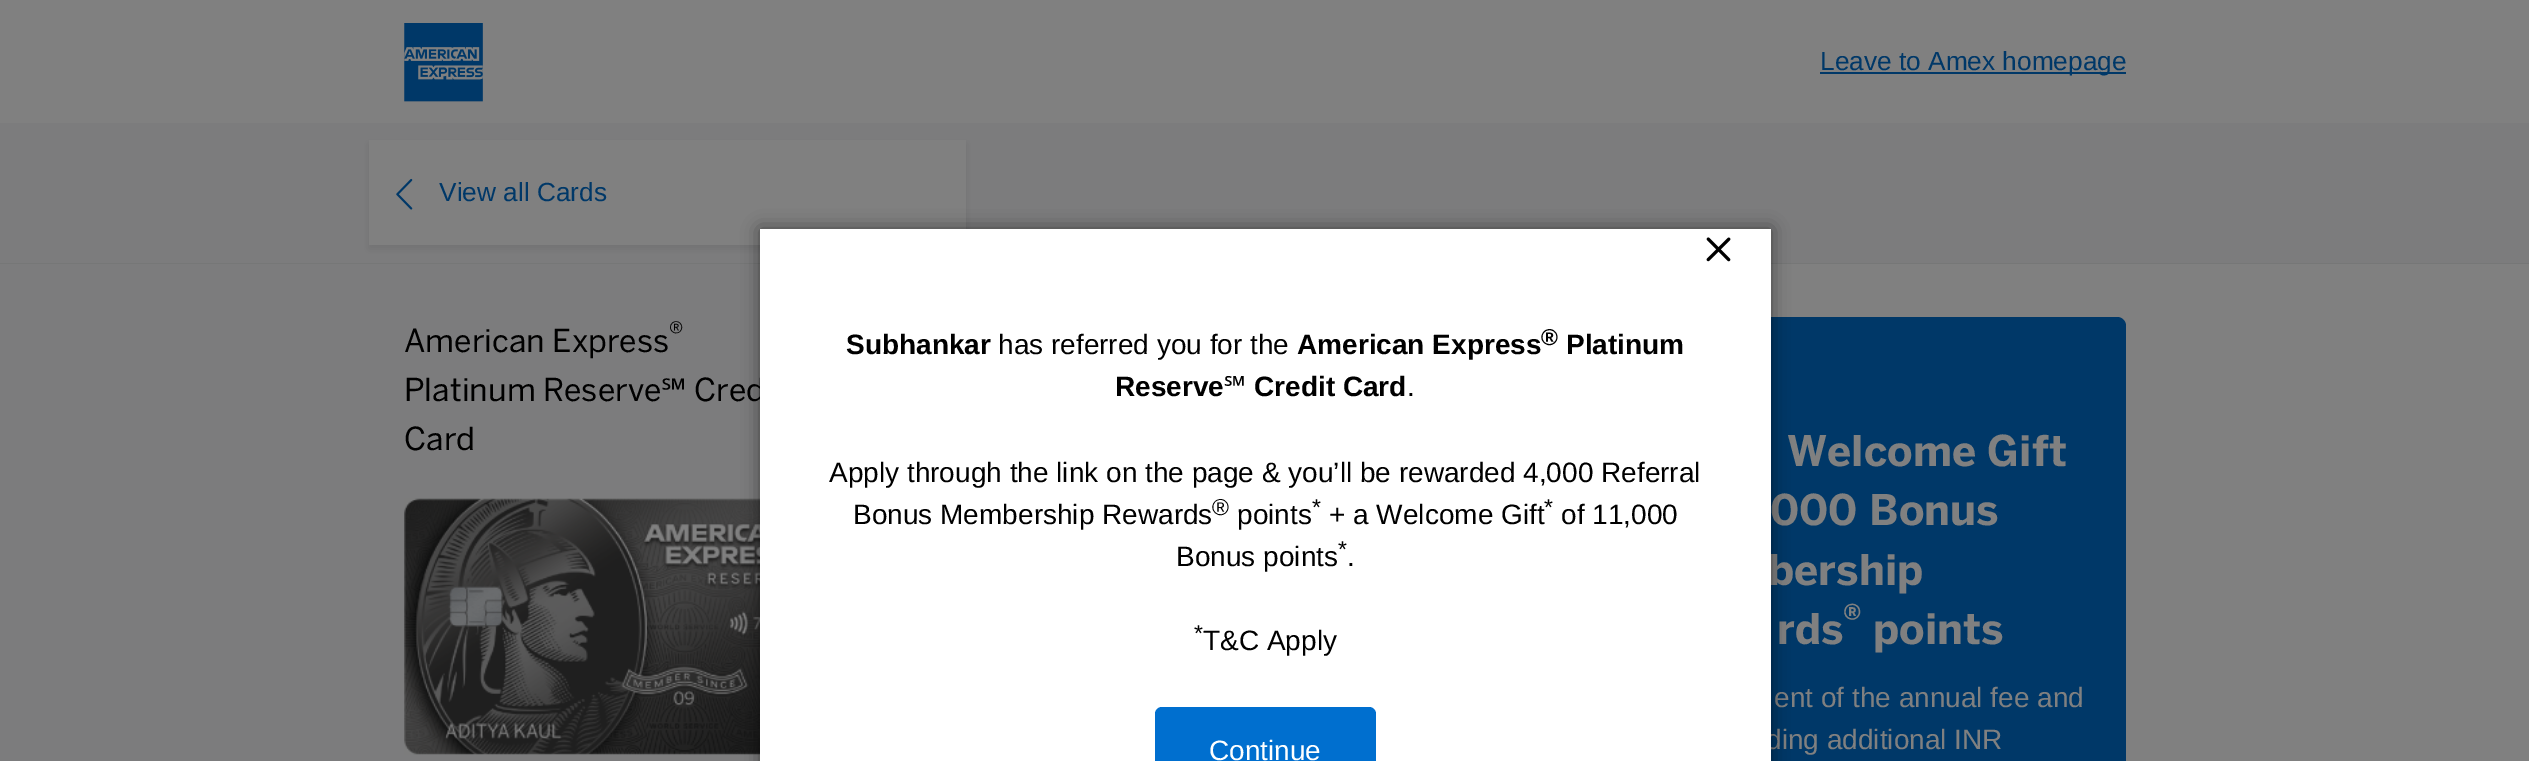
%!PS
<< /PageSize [2529 761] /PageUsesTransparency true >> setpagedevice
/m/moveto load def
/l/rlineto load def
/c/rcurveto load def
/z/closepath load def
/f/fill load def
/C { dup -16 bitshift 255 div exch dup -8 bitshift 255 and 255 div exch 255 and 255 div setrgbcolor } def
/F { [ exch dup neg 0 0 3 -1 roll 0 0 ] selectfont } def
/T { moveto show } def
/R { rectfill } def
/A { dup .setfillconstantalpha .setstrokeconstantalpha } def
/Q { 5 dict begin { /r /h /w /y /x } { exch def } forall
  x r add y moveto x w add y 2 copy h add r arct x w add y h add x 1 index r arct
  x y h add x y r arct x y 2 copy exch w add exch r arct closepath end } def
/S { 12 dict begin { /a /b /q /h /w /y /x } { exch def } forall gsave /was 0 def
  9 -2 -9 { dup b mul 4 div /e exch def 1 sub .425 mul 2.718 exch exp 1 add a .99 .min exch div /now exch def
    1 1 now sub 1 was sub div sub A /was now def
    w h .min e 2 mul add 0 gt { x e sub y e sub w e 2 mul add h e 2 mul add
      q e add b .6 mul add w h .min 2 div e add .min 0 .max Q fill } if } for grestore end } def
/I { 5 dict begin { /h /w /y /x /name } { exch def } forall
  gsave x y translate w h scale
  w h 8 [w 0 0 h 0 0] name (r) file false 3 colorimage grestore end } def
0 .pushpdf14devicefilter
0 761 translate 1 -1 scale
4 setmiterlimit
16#808080 C
0 0 2529 761 R
(1.rgb) 404 23 79 79 I
16#003868 C
1820 72 306 2 R
/LiberationSans-Regular 26.25 F
(Leave to Amex homepage) 1820 70 T
16#7C7C7D C
0 123 2529 140 R
16#767777 C
0 263 2529 1 R
16#000000 C
369 144 597 105 0 4.5 .1 S
16#808080 C
369 140 597 105 R
(2.rgb) 396 178 17 32 I
16#003868 C
(View all Cards) 439 201 T
16#7C7C7D C
0 264 760 497 R
/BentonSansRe-Regular 31.5 F
16#000000 C
(American Express) 404 352 T
/BentonSansRe-Regular 26.25 F
(®) 669 341 T
/BentonSansRe-Regular 31.5 F
(Platinum Reserve) 404 401 T
/NotoSans-Medium 31.5 F
(℠) 661 401 T
/BentonSansRe-Regular 31.5 F
(Cred) 694 401 T
(Card) 404 450 T
(3.rgb) 404 498 356 257 I
16#003868 C
1544 317 m 573 0 l 5 0 9 4 9 9 c 0 435 l 0 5 -4 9 -9 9 c -573 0 l z f
/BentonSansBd-Bold 42 F
16#808080 C
(Welcome Gift) 1787 466 T
(000 Bonus) 1770 525 T
(bership) 1768 585 T
(rds) 1777 644 T
/BentonSansBd-Bold 35 F
(®) 1843 630 T
/BentonSansBd-Bold 42 F
(points) 1873 644 T
/LiberationSans-Regular 28 F
(ent of the annual fee and) 1774 707 T
(ding additional INR) 1766 749 T
16#000000 C
760 229 1011 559 0 9 .5 S
16#FFFFFF C
760 229 1011 532 R
(4.rgb) 1706 237 25 25 I
/LiberationSans-Bold 28 F
16#000000 C
(Subhankar) 846 354 T
/LiberationSans-Regular 28 F
(has referred you for the) 998 354 T
/LiberationSans-Bold 28 F
(American Express) 1297 354 T
/LiberationSans-Bold 23 F
(®) 1541 345 T
/LiberationSans-Bold 28 F
(Platinum) 1566 354 T
(Reserve) 1115 396 T
/NotoSans-Bold 28 F
(℠) 1224 396 T
/LiberationSans-Bold 28 F
(Credit Card) 1254 396 T
/LiberationSans-Regular 28 F
(.) 1407 396 T
(Apply through the link on the page & you’ll be rewarded 4,000 Referral) 829 482 T
(Bonus Membership Rewards) 853 524 T
/LiberationSans-Regular 23 F
(®) 1212 515 T
/LiberationSans-Regular 28 F
(points) 1237 524 T
/LiberationSans-Regular 23 F
(*) 1312 515 T
/LiberationSans-Regular 28 F
(+ a Welcome Gift) 1329 524 T
/LiberationSans-Regular 23 F
(*) 1544 515 T
/LiberationSans-Regular 28 F
(of 11,000) 1561 524 T
(Bonus points) 1176 566 T
/LiberationSans-Regular 23 F
(*) 1338 557 T
/LiberationSans-Regular 28 F
(.) 1347 566 T
/LiberationSans-Regular 23 F
(*) 1194 641 T
/LiberationSans-Regular 28 F
(T&C Apply) 1203 650 T
16#006FCF C
1155 707 221 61 7 Q f
16#FFFFFF C
(Continue) 1209 760 T
.poppdf14devicefilter showpage
